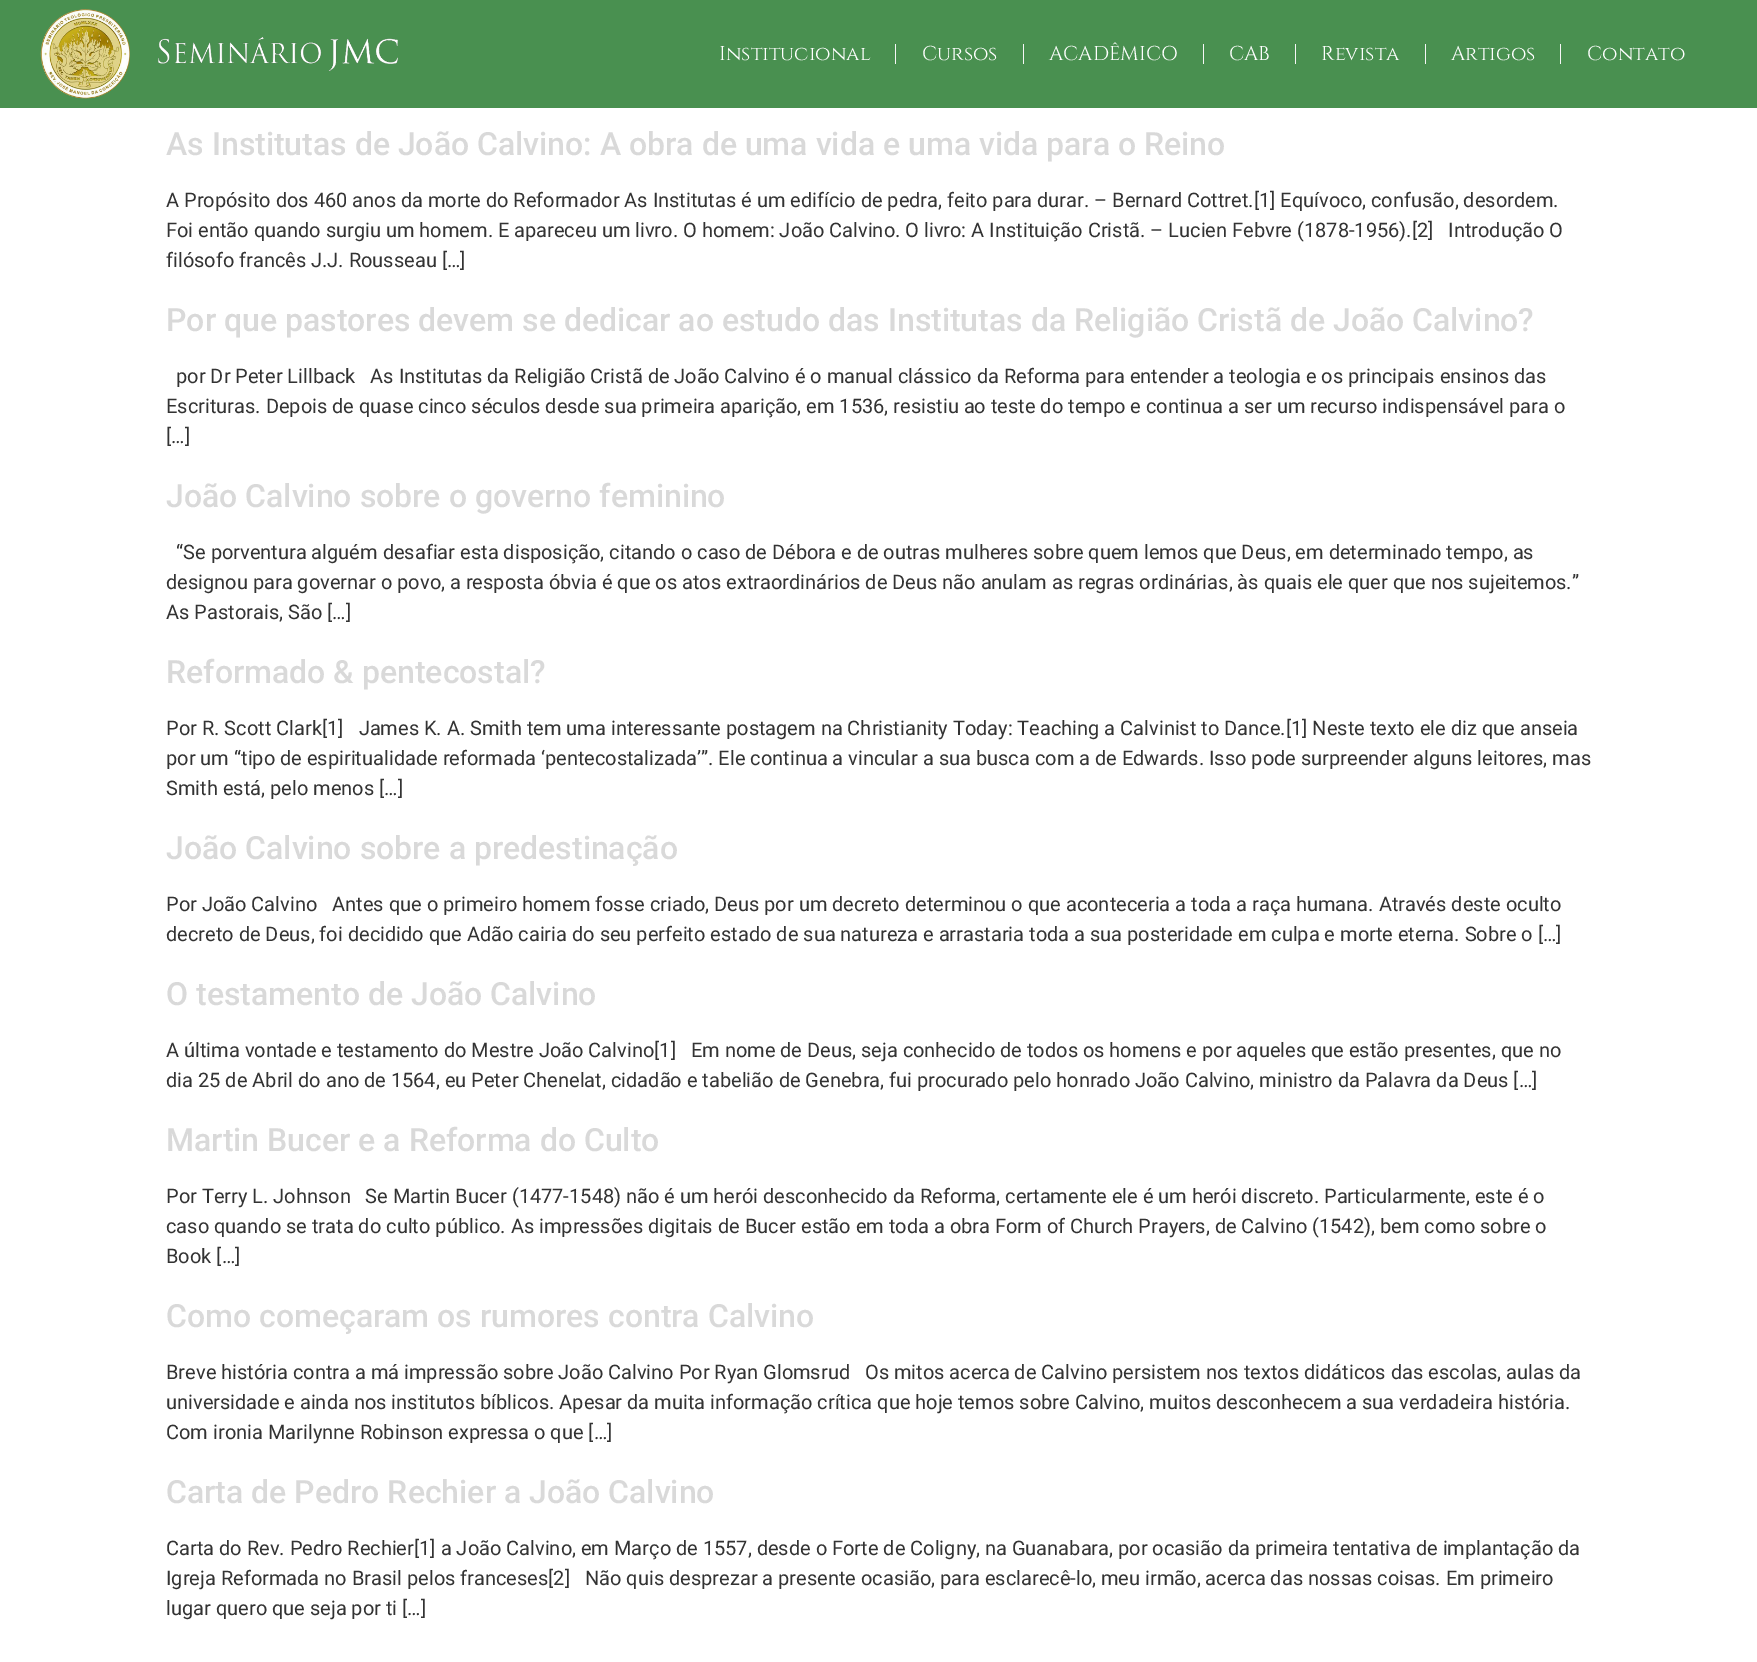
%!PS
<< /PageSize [1757 1662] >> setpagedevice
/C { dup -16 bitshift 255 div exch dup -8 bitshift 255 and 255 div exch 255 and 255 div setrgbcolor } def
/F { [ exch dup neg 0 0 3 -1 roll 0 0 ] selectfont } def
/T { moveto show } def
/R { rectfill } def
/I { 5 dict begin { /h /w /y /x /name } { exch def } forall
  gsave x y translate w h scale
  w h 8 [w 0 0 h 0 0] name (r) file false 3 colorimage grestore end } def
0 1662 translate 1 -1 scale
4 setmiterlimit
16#FFFFFF C
0 0 1757 1662 R
16#499050 C
0 0 1757 108 R
(1.rgb) 40 9 358 90 I
/Cinzel-Regular 20 F
16#FFFFFF C
(Institucional) 719 60 T
16#F6F6F6 C
895 44 1 20 R
16#FFFFFF C
(Cursos) 922 60 T
16#F6F6F6 C
1023 44 1 20 R
16#FFFFFF C
(ACADÊMICO) 1049 60 T
16#F6F6F6 C
1203 44 1 20 R
16#FFFFFF C
(CAB) 1229 60 T
16#F6F6F6 C
1295 44 1 20 R
16#FFFFFF C
(Revista) 1321 60 T
16#F6F6F6 C
1425 44 1 20 R
16#FFFFFF C
(Artigos) 1451 60 T
16#F6F6F6 C
1560 44 1 20 R
16#FFFFFF C
(Contato) 1587 60 T
/Roboto-Medium 32 F
16#D9D9D9 C
(As Institutas de João Calvino: A obra de uma vida e uma vida para o Reino) 166 155 T
/Roboto-Regular 20 F
16#333333 C
(A Propósito dos 460 anos da morte do Reformador As Institutas é um edifício de pedra, feito para durar. – Bernard Cottret.[1] Equívoco, confusão, desordem.) 166 207 T
(Foi então quando surgiu um homem. E apareceu um livro. O homem: João Calvino. O livro: A Instituição Cristã. – Lucien Febvre \(1878-1956\).[2]   Introdução O) 166 237 T
(filósofo francês J.J. Rousseau […]) 166 267 T
/Roboto-Medium 32 F
16#D9D9D9 C
(Por que pastores devem se dedicar ao estudo das Institutas da Religião Cristã de João Calvino?) 166 331 T
/Roboto-Regular 20 F
16#333333 C
(por Dr Peter Lillback   As Institutas da Religião Cristã de João Calvino é o manual clássico da Reforma para entender a teologia e os principais ensinos das) 176 383 T
(Escrituras. Depois de quase cinco séculos desde sua primeira aparição, em 1536, resistiu ao teste do tempo e continua a ser um recurso indispensável para o) 166 413 T
([…]) 166 443 T
/Roboto-Medium 32 F
16#D9D9D9 C
(João Calvino sobre o governo feminino) 166 507 T
/Roboto-Regular 20 F
16#333333 C
(“Se porventura alguém desafiar esta disposição, citando o caso de Débora e de outras mulheres sobre quem lemos que Deus, em determinado tempo, as) 176 559 T
(designou para governar o povo, a resposta óbvia é que os atos extraordinários de Deus não anulam as regras ordinárias, às quais ele quer que nos sujeitemos.”) 166 589 T
(As Pastorais, São […]) 166 619 T
/Roboto-Medium 32 F
16#D9D9D9 C
(Reformado & pentecostal?) 166 683 T
/Roboto-Regular 20 F
16#333333 C
(Por R. Scott Clark[1]   James K. A. Smith tem uma interessante postagem na Christianity Today: Teaching a Calvinist to Dance.[1] Neste texto ele diz que anseia) 166 735 T
(por um “tipo de espiritualidade reformada ‘pentecostalizada’”. Ele continua a vincular a sua busca com a de Edwards. Isso pode surpreender alguns leitores, mas) 166 765 T
(Smith está, pelo menos […]) 166 795 T
/Roboto-Medium 32 F
16#D9D9D9 C
(João Calvino sobre a predestinação) 166 859 T
/Roboto-Regular 20 F
16#333333 C
(Por João Calvino   Antes que o primeiro homem fosse criado, Deus por um decreto determinou o que aconteceria a toda a raça humana. Através deste oculto) 166 911 T
(decreto de Deus, foi decidido que Adão cairia do seu perfeito estado de sua natureza e arrastaria toda a sua posteridade em culpa e morte eterna. Sobre o […]) 166 941 T
/Roboto-Medium 32 F
16#D9D9D9 C
(O testamento de João Calvino) 166 1005 T
/Roboto-Regular 20 F
16#333333 C
(A última vontade e testamento do Mestre João Calvino[1]   Em nome de Deus, seja conhecido de todos os homens e por aqueles que estão presentes, que no) 166 1057 T
(dia 25 de Abril do ano de 1564, eu Peter Chenelat, cidadão e tabelião de Genebra, fui procurado pelo honrado João Calvino, ministro da Palavra da Deus […]) 166 1087 T
/Roboto-Medium 32 F
16#D9D9D9 C
(Martin Bucer e a Reforma do Culto) 166 1151 T
/Roboto-Regular 20 F
16#333333 C
(Por Terry L. Johnson   Se Martin Bucer \(1477-1548\) não é um herói desconhecido da Reforma, certamente ele é um herói discreto. Particularmente, este é o) 166 1203 T
(caso quando se trata do culto público. As impressões digitais de Bucer estão em toda a obra Form of Church Prayers, de Calvino \(1542\), bem como sobre o) 166 1233 T
(Book […]) 166 1263 T
/Roboto-Medium 32 F
16#D9D9D9 C
(Como começaram os rumores contra Calvino) 166 1327 T
/Roboto-Regular 20 F
16#333333 C
(Breve história contra a má impressão sobre João Calvino Por Ryan Glomsrud   Os mitos acerca de Calvino persistem nos textos didáticos das escolas, aulas da) 166 1379 T
(universidade e ainda nos institutos bíblicos. Apesar da muita informação crítica que hoje temos sobre Calvino, muitos desconhecem a sua verdadeira história.) 166 1409 T
(Com ironia Marilynne Robinson expressa o que […]) 166 1439 T
/Roboto-Medium 32 F
16#D9D9D9 C
(Carta de Pedro Rechier a João Calvino) 166 1503 T
/Roboto-Regular 20 F
16#333333 C
(Carta do Rev. Pedro Rechier[1] a João Calvino, em Março de 1557, desde o Forte de Coligny, na Guanabara, por ocasião da primeira tentativa de implantação da) 166 1555 T
(Igreja Reformada no Brasil pelos franceses[2]   Não quis desprezar a presente ocasião, para esclarecê-lo, meu irmão, acerca das nossas coisas. Em primeiro) 166 1585 T
(lugar quero que seja por ti […]) 166 1615 T
showpage
